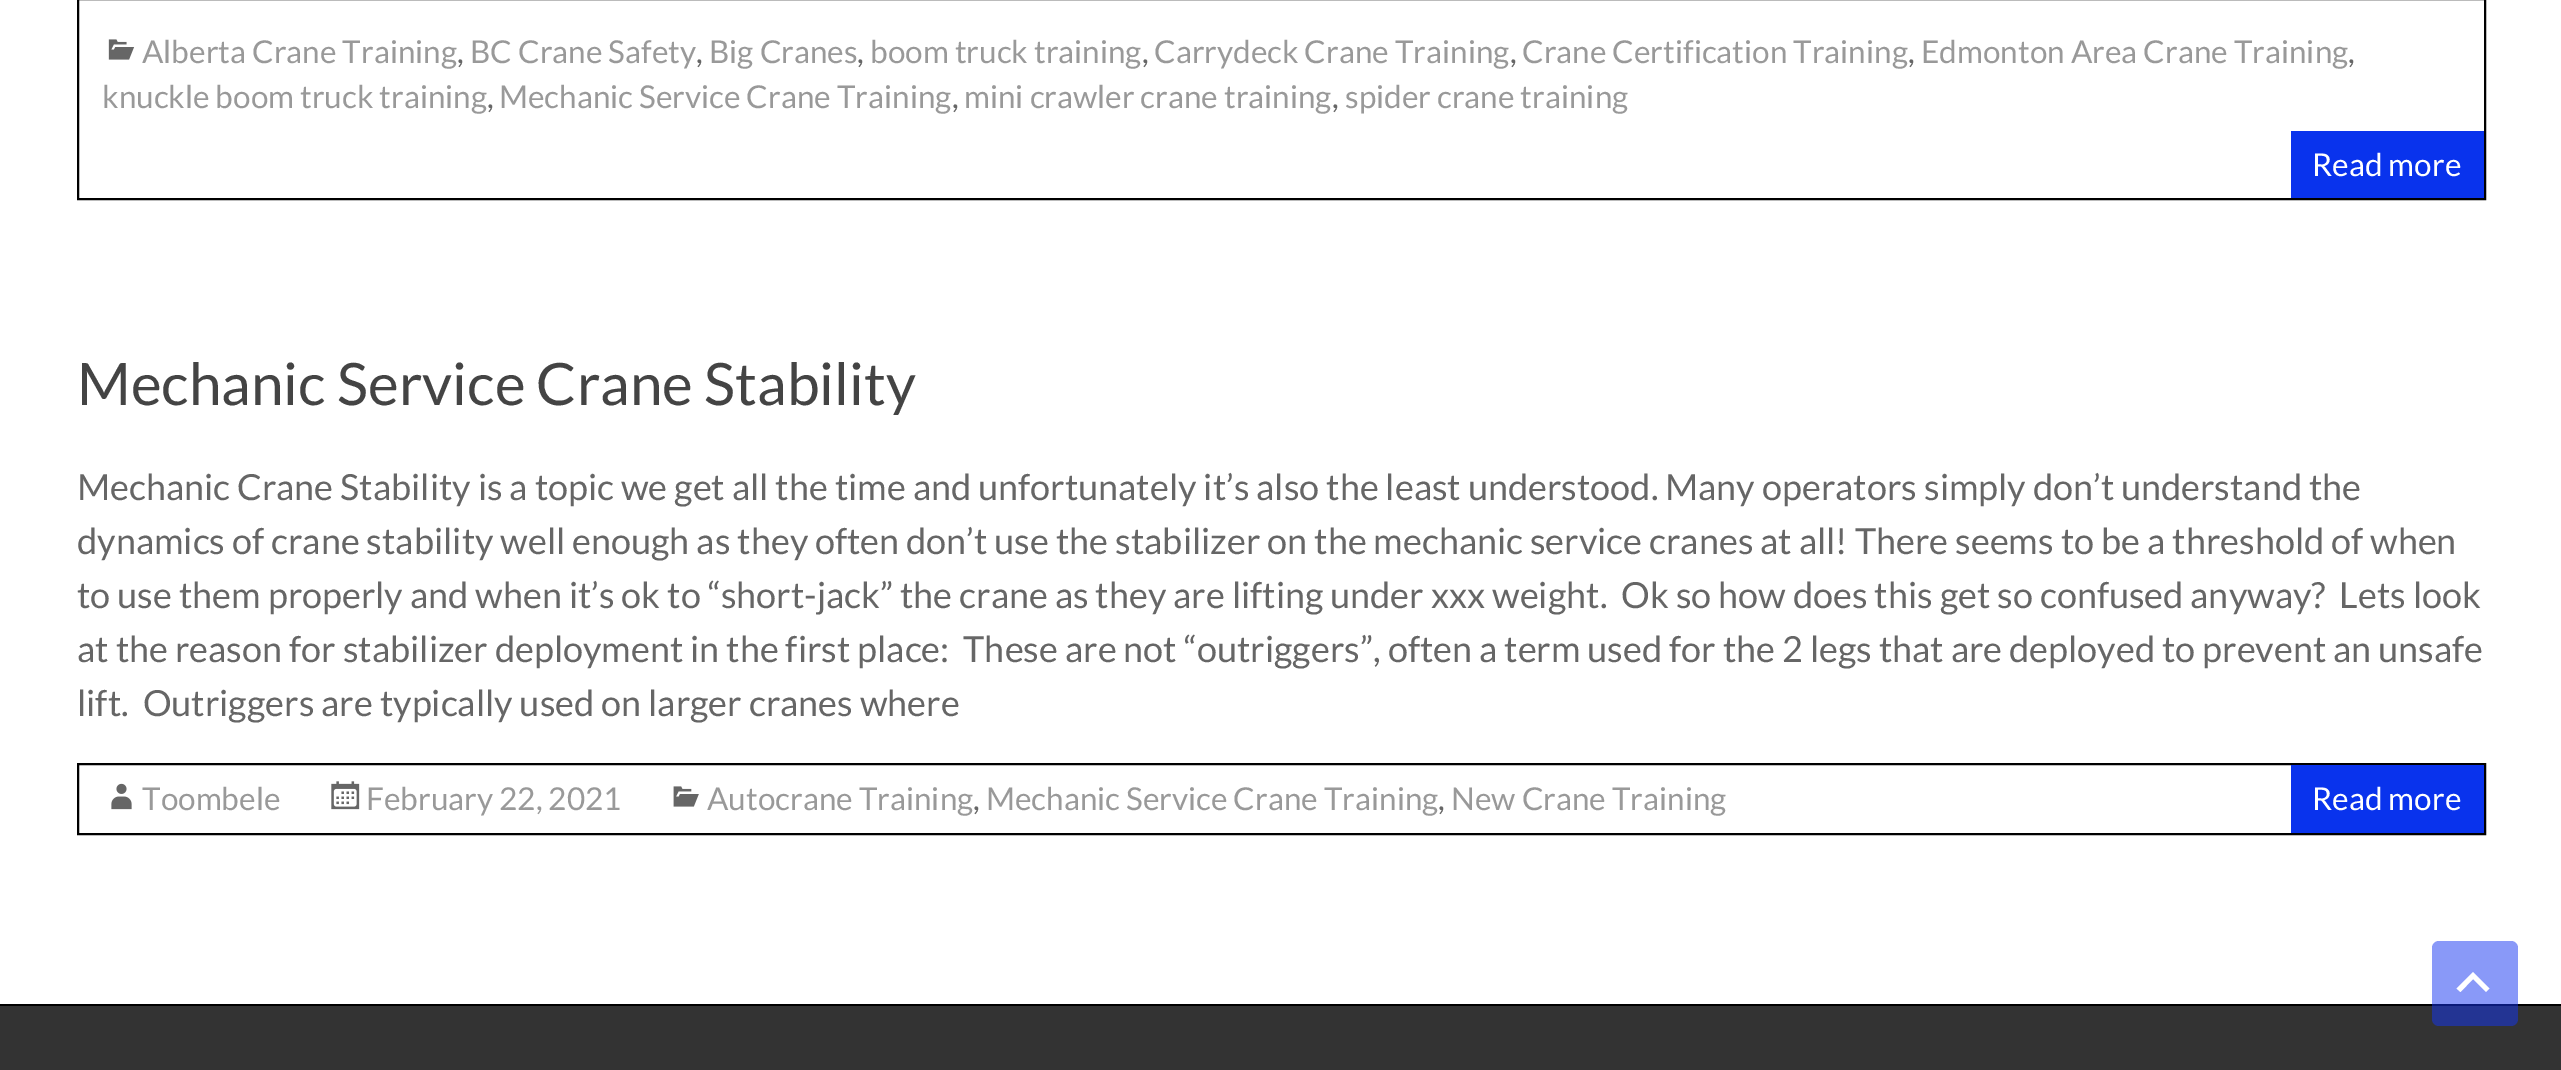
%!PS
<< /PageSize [2561 1070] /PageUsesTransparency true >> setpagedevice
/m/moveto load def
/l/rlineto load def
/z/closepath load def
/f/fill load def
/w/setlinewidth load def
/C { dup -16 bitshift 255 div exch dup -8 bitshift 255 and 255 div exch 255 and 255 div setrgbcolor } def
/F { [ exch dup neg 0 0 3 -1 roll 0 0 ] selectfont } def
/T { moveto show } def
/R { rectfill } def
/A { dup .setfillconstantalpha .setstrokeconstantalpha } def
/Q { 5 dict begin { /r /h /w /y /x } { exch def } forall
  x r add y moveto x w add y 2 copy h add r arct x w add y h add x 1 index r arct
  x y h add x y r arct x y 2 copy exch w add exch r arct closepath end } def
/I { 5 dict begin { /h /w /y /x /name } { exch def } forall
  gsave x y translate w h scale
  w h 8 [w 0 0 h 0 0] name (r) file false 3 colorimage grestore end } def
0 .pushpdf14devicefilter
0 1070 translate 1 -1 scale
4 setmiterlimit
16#FFFFFF C
0 0 2561 1070 R
16#000000 C
2 w
78 -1 2407 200 rectstroke
(1.rgb) 108 39 27 21 I
/Lato-Regular 31.5 F
16#999999 C
(Alberta Crane Training) 142 63 T
16#666666 C
(,) 457 63 T
16#999999 C
(BC Crane Safety) 470 63 T
16#666666 C
(,) 696 63 T
16#999999 C
(Big Cranes) 709 63 T
16#666666 C
(,) 857 63 T
16#999999 C
(boom truck training) 870 63 T
16#666666 C
(,) 1142 63 T
16#999999 C
(Carrydeck Crane Training) 1154 63 T
16#666666 C
(,) 1510 63 T
16#999999 C
(Crane Certification Training) 1522 63 T
16#666666 C
(,) 1908 63 T
16#999999 C
(Edmonton Area Crane Training) 1921 63 T
16#666666 C
(,) 2348 63 T
16#999999 C
(knuckle boom truck training) 102 108 T
16#666666 C
(,) 487 108 T
16#999999 C
(Mechanic Service Crane Training) 499 108 T
16#666666 C
(,) 952 108 T
16#999999 C
(mini crawler crane training) 964 108 T
16#666666 C
(,) 1332 108 T
16#999999 C
(spider crane training) 1345 108 T
16#0933ED C
2291 131 193 67 R
16#FFFFFF C
(Read more) 2312 176 T
/Lato-Regular 58.5 F
16#444444 C
(Mechanic Service Crane Stability) 77 405 T
/Lato-Regular 36 F
16#666666 C
(Mechanic Crane Stability is a topic we get all the time and unfortunately it’s also the least understood. Many operators simply don’t understand the) 77 500 T
(dynamics of crane stability well enough as they often don’t use the stabilizer on the mechanic service cranes at all! There seems to be a threshold of when) 77 554 T
(to use them properly and when it’s ok to “short-jack” the crane as they are lifting under xxx weight.  Ok so how does this get so confused anyway?  Lets look) 77 608 T
(at the reason for stabilizer deployment in the first place:  These are not “outriggers”, often a term used for the 2 legs that are deployed to prevent an unsafe) 77 662 T
(lift.  Outriggers are typically used on larger cranes where) 77 716 T
16#000000 C
78 764 2407 70 rectstroke
(2.rgb) 111 783 21 27 I
/Lato-Regular 31.5 F
16#999999 C
(Toombele) 142 810 T
(3.rgb) 331 781 29 29 I
(February 22, 2021) 366 810 T
(4.rgb) 673 786 26 21 I
(Autocrane Training) 707 810 T
16#666666 C
(,) 973 810 T
16#999999 C
(Mechanic Service Crane Training) 986 810 T
16#666666 C
(,) 1438 810 T
16#999999 C
(New Crane Training) 1451 810 T
16#0933ED C
2291 765 193 68 R
16#FFFFFF C
(Read more) 2312 810 T
16#333333 C
0 1006 2561 64 R
16#000000 C
0 1004 2561 2 R
0.5 A
16#1334F2 C
2432 941 86 85 7 Q f
1 A
16#FFFFFF C
2456.5 988.5 m 16.5 -16.5 l 16.5 16.5 l -3.5 3.5 l -13 -13 l -12.5 13 l z f
.poppdf14devicefilter showpage
